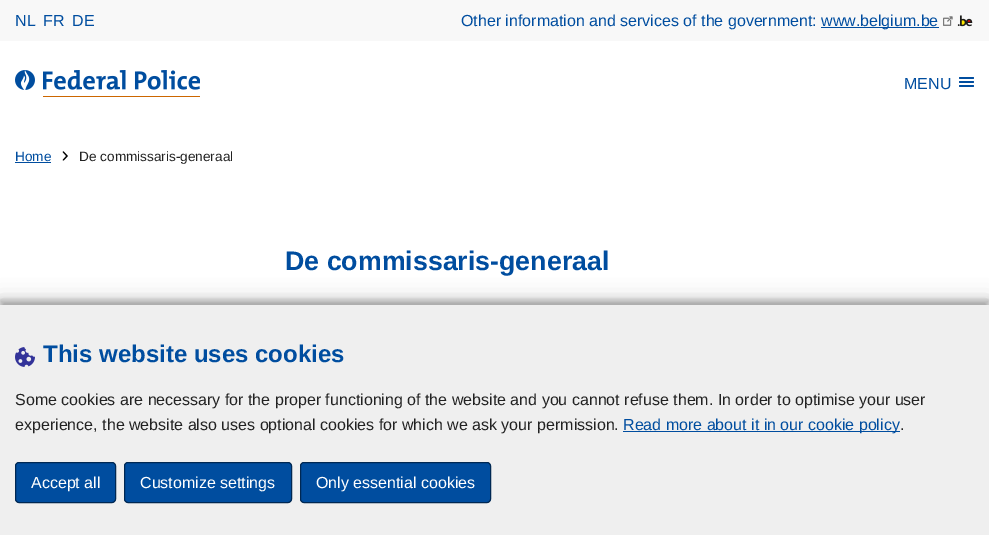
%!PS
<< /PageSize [989 535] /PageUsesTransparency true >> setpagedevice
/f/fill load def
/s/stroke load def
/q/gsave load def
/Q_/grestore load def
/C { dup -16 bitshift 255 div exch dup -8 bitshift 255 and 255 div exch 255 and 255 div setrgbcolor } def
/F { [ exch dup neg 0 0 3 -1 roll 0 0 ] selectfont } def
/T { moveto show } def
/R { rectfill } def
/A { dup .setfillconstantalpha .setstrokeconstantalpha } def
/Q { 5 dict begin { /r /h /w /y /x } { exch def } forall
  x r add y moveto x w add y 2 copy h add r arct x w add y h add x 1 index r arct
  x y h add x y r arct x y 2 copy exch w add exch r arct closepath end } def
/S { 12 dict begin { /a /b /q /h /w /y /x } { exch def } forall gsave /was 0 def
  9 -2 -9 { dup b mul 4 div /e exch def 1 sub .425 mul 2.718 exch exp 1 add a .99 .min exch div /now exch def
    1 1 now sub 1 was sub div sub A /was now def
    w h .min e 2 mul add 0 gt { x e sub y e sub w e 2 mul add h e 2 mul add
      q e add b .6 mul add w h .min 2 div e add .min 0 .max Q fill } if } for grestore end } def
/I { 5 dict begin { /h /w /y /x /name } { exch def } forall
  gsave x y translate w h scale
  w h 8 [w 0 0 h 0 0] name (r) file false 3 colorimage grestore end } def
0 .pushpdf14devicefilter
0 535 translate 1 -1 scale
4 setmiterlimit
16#FFFFFF C
0 0 989 535 R
16#F8F8F8 C
0 0 989 41 R
/LiberationSans-Regular 16 F
16#004D9F C
(NL) 15 26 T
(FR) 43 26 T
(DE) 72 26 T
(Other information and services of the government:) 461 26 T
821 27 118 1 R
(www.belgium.be) 821 26 T
(1.rgb) 943 16 10 10 I
(2.rgb) 957 15 16 12 I
(3.rgb) 15 70 20 20 I
(4.rgb) 43 70 157 27 I
(MENU) 904 89 T
959 81 15 2 1 Q f
959 77 15 2 1 Q f
959 85 15 2 1 Q f
/LiberationSans-Regular 13.6 F
(Home) 15 161 T
15 162 36 1 R
(5.rgb) 62 151 6 10 I
16#222222 C
(De commissaris-generaal) 79 161 T
/LiberationSans-Bold 26.75 F
16#004D9F C
(De commissaris-generaal) 285 270 T
16#000000 C
0 300 989 230 0 3 .23 S
0 300 989 230 0 10 .19 S
16#EFEFEF C
0 305 989 230 R
(6.rgb) 15 347 20 20 I
/LiberationSans-Bold 24 F
16#004D9F C
(This website uses cookies) 43 362 T
/LiberationSans-Regular 16 F
16#222222 C
(Some cookies are necessary for the proper functioning of the website and you cannot refuse them. In order to optimise your user) 15 405 T
(experience, the website also uses optional cookies for which we ask your permission.) 15 430 T
16#004D9F C
623 431 277 1 R
(Read more about it in our cookie policy) 623 430 T
16#222222 C
(.) 900 430 T
16#004D9F C
15.5 462.5 100 40 3.5 Q q f Q_
16#002853 C
s
16#FFFFFF C
(Accept all) 31 488 T
16#004D9F C
124.5 462.5 167 40 3.5 Q q f Q_
16#002853 C
s
16#FFFFFF C
(Customize settings) 140 488 T
16#004D9F C
300.5 462.5 190 40 3.5 Q q f Q_
16#002853 C
s
16#FFFFFF C
(Only essential cookies) 316 488 T
.poppdf14devicefilter showpage
